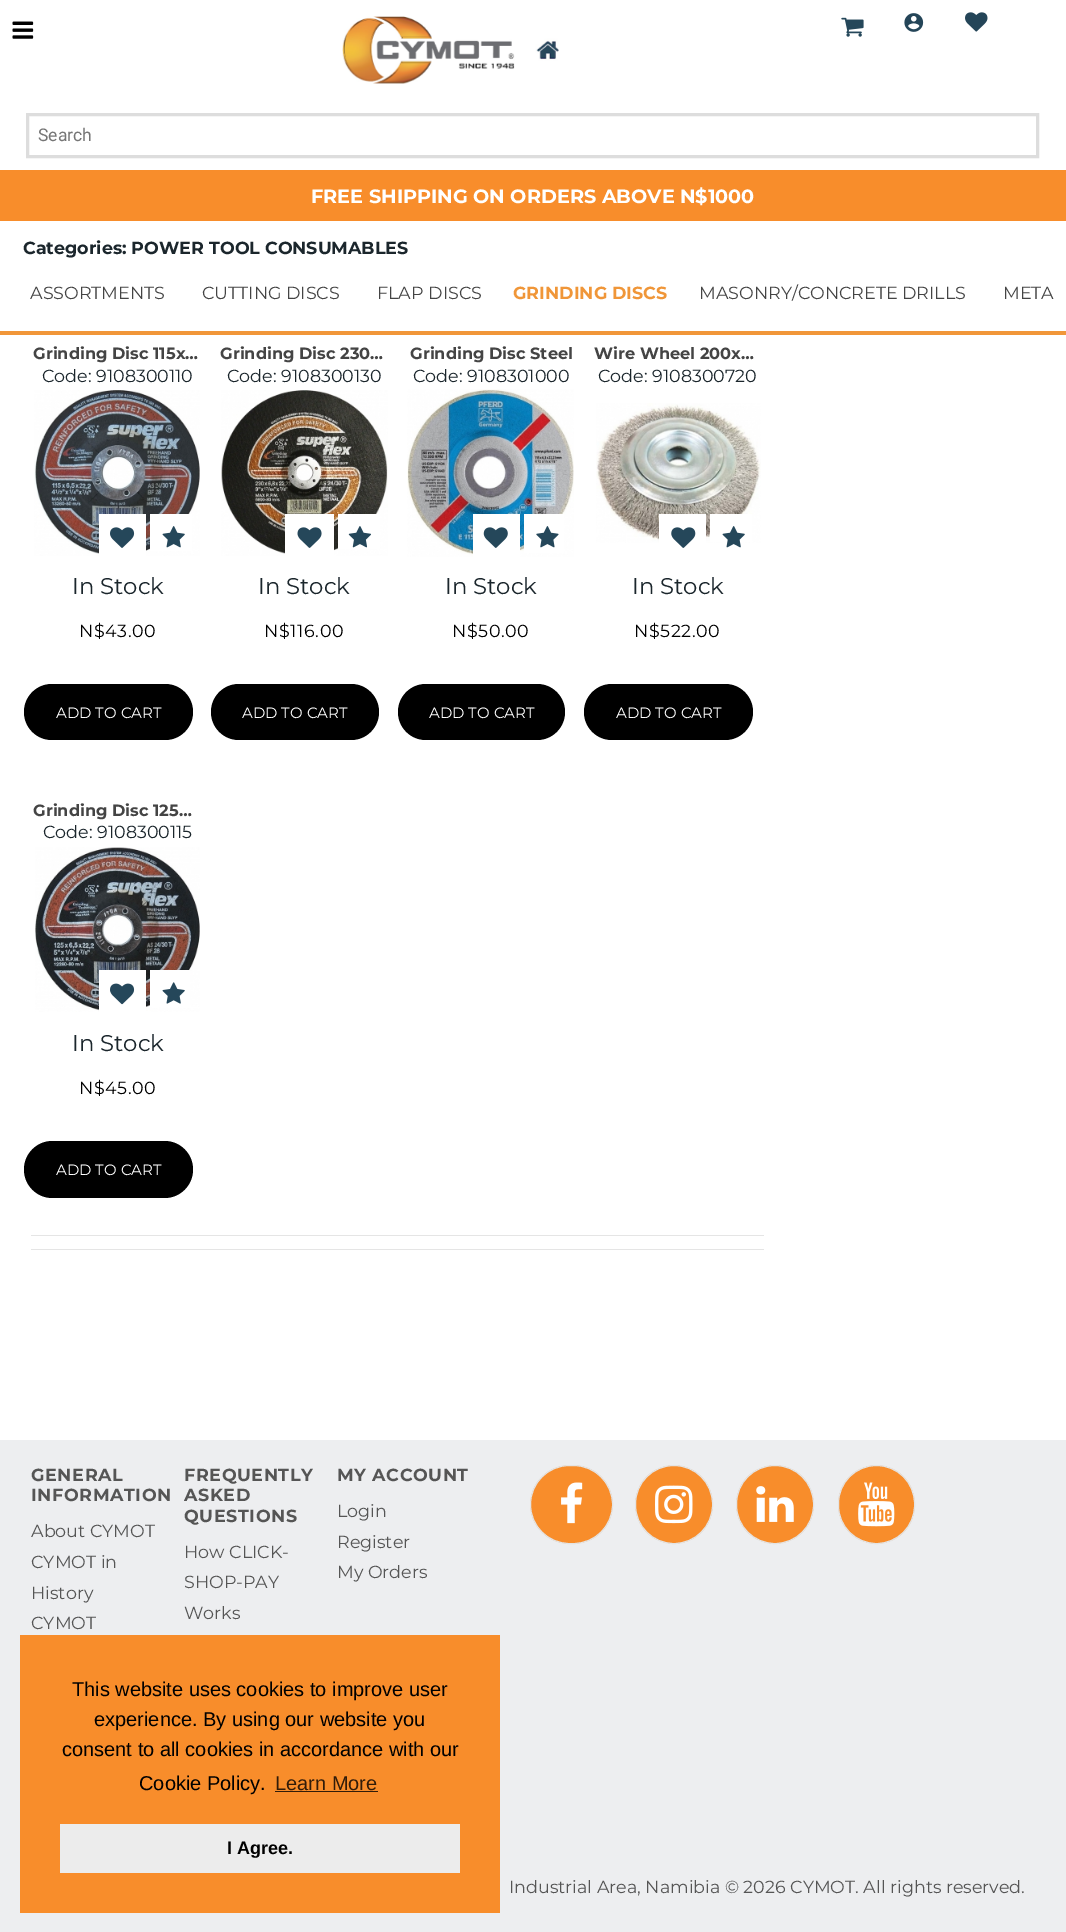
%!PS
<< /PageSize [1066 1932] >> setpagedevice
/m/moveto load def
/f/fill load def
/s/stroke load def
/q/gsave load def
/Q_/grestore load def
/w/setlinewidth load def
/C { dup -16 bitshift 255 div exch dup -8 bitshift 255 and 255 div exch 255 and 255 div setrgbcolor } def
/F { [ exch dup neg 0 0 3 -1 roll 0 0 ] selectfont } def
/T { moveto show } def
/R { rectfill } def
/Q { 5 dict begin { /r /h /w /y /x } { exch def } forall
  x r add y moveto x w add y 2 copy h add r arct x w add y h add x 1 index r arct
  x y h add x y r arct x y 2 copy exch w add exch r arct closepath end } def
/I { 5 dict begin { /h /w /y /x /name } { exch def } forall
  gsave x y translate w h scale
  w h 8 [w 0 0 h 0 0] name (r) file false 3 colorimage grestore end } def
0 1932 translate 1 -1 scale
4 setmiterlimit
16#FFFFFF C
0 0 1066 1932 R
(1.rgb) 12 21 22 18 I
(2.rgb) 342 16 217 68 I
(3.rgb) 841 17 23 20 I
(4.rgb) 904 13 20 19 I
(5.rgb) 965 12 23 20 I
16#DDDDDD C
3 w
27.5 114.5 1010 42 rectstroke
/Roboto-Regular 17.5 F
16#757575 C
(Search) 38 141 T
16#F88D2B C
0 170 1066 51 R
/Montserrat-Bold 19.25 F
16#FFFFFF C
(FREE SHIPPING ON ORDERS ABOVE N$1000) 311 203 T
16#F19639 C
0 331 1066 4 R
/Montserrat-Bold 17.5 F
16#1B262C C
(Categories: POWER TOOL CONSUMABLES) 23 254 T
/Montserrat-Regular 17.5 F
16#444444 C
(ASSORTMENTS) 30 299 T
(CUTTING DISCS) 202 299 T
(FLAP DISCS) 377 299 T
/Montserrat-Bold 17.5 F
16#F09638 C
(GRINDING DISCS) 513 299 T
/Montserrat-Regular 17.5 F
16#444444 C
(MASONRY/CONCRETE DRILLS) 699 299 T
(META) 1003 299 T
/Montserrat-Bold 16.25 F
(Grinding Disc 115x…) 33 359 T
/Montserrat-Regular 17.5 F
16#1B262C C
(Code: 9108300110) 42 382 T
(6.rgb) 34 390 166 166 I
16#FFFFFF C
99 514 47 42 R
(7.rgb) 110 527 25 21 I
150 514 42 37 R
(8.rgb) 162 526 23 22 I
/Montserrat-Regular 22.75 F
16#1B262C C
(In Stock) 72 594 T
/Montserrat-Regular 17.5 F
16#000000 C
79 637 m .6 0 (N$43.00) ashow
24 684 169 56 28 Q f
/Montserrat-Regular 15 F
16#FFFFFF C
(ADD TO CART) 56 718 T
/Montserrat-Bold 16.25 F
16#444444 C
(Grinding Disc 230…) 220 359 T
/Montserrat-Regular 17.5 F
16#1B262C C
(Code: 9108300130) 227 382 T
(9.rgb) 221 390 167 166 I
16#FFFFFF C
285 514 49 42 R
(10.rgb) 297 527 25 21 I
338 514 42 35 R
(11.rgb) 348 526 23 22 I
/Montserrat-Regular 22.75 F
16#1B262C C
(In Stock) 258 594 T
/Montserrat-Regular 17.5 F
16#000000 C
264 637 m .6 0 (N$116.00) ashow
211 684 168 56 28 Q f
/Montserrat-Regular 15 F
16#FFFFFF C
(ADD TO CART) 242 718 T
/Montserrat-Bold 16.25 F
16#444444 C
(Grinding Disc Steel) 410 359 T
/Montserrat-Regular 17.5 F
16#1B262C C
(Code: 9108301000) 413 382 T
(12.rgb) 407 389 167 168 I
16#FFFFFF C
473 514 47 43 R
(13.rgb) 483 527 25 21 I
524 514 40 39 R
(14.rgb) 536 526 23 22 I
/Montserrat-Regular 22.75 F
16#1B262C C
(In Stock) 445 594 T
/Montserrat-Regular 17.5 F
16#000000 C
452 637 m .6 0 (N$50.00) ashow
398 684 167 56 28 Q f
/Montserrat-Regular 15 F
16#FFFFFF C
(ADD TO CART) 429 718 T
/Montserrat-Bold 16.25 F
16#444444 C
(Wire Wheel 200x…) 594 359 T
/Montserrat-Regular 17.5 F
16#1B262C C
(Code: 9108300720) 598 382 T
(15.rgb) 596 403 165 140 I
16#FFFFFF C
659 514 47 29 R
(16.rgb) 671 527 25 21 I
710 514 42 28 R
(8.rgb) 722 526 23 22 I
/Montserrat-Regular 22.75 F
16#1B262C C
(In Stock) 632 594 T
/Montserrat-Regular 17.5 F
16#000000 C
634 637 m .6 0 (N$522.00) ashow
584 684 169 56 28 Q f
/Montserrat-Regular 15 F
16#FFFFFF C
(ADD TO CART) 616 718 T
/Montserrat-Bold 16.25 F
16#444444 C
(Grinding Disc 125…) 33 816 T
/Montserrat-Regular 17.5 F
16#1B262C C
(Code: 9108300115) 43 838 T
(17.rgb) 35 847 165 165 I
16#FFFFFF C
99 970 47 42 R
(18.rgb) 110 983 25 22 I
150 970 40 37 R
(19.rgb) 162 982 23 22 I
/Montserrat-Regular 22.75 F
16#1B262C C
(In Stock) 72 1051 T
/Montserrat-Regular 17.5 F
16#000000 C
79 1094 m .6 0 (N$45.00) ashow
24 1141 169 57 28.5 Q f
/Montserrat-Regular 15 F
16#FFFFFF C
(ADD TO CART) 56 1175 T
16#E5E5E5 C
31 1235 733 1 R
31 1249 733 1 R
16#EDEEF0 C
0 1440 1066 492 R
/Montserrat-Bold 17.5 F
16#555555 C
31 1481 m .6 0 (GENERAL) ashow
31 1501 m .6 0 (INFORMATION) ashow
/Montserrat-Regular 17.5 F
(About CYMOT) 31 1537 T
(CYMOT in) 31 1568 T
(History) 31 1599 T
(CYMOT) 31 1629 T
/Montserrat-Bold 17.5 F
184 1481 m .6 0 (FREQUENTLY) ashow
184 1501 m .6 0 (ASKED) ashow
184 1522 m .6 0 (QUESTIONS) ashow
/Montserrat-Regular 17.5 F
(How CLICK-) 184 1558 T
(SHOP-PAY) 184 1588 T
(Works) 184 1619 T
/Montserrat-Bold 17.5 F
337 1481 m .6 0 (MY ACCOUNT) ashow
/Montserrat-Regular 17.5 F
(Login) 337 1517 T
(Register) 337 1548 T
(My Orders) 337 1578 T
16#F88D2B C
530.5 1465.5 82 78 39 Q q f Q_
16#E4E4E4 C
1 w
s
(20.rgb) 561 1482 22 42 I
16#F88D2B C
635.5 1465.5 77 78 38.5 Q q f Q_
16#E4E4E4 C
s
(21.rgb) 655 1485 38 39 I
16#F88D2B C
736.5 1465.5 77 78 38.5 Q q f Q_
16#E4E4E4 C
s
(22.rgb) 756 1486 38 36 I
16#F88D2B C
838.5 1465.5 76 78 38 Q q f Q_
16#E4E4E4 C
s
(23.rgb) 858 1482 37 45 I
16#555555 C
(Industrial Area, Namibia © 2026 CYMOT. All rights reserved.) 509 1893 T
16#F88D2B C
20 1635 480 278 R
/LiberationSans-Regular 20 F
16#000000 C
(This website uses cookies to improve user) 72 1696 T
(experience. By using our website you) 94 1726 T
(consent to all cookies in accordance with our) 62 1756 T
(Cookie Policy.) 139 1790 T
16#321C09 C
(Learn More) 275 1790 T
275 1791 103 1 R
16#ECECEC C
60 1824 400 49 R
/LiberationSans-Bold 18 F
16#000000 C
(I Agree.) 227 1854 T
showpage
